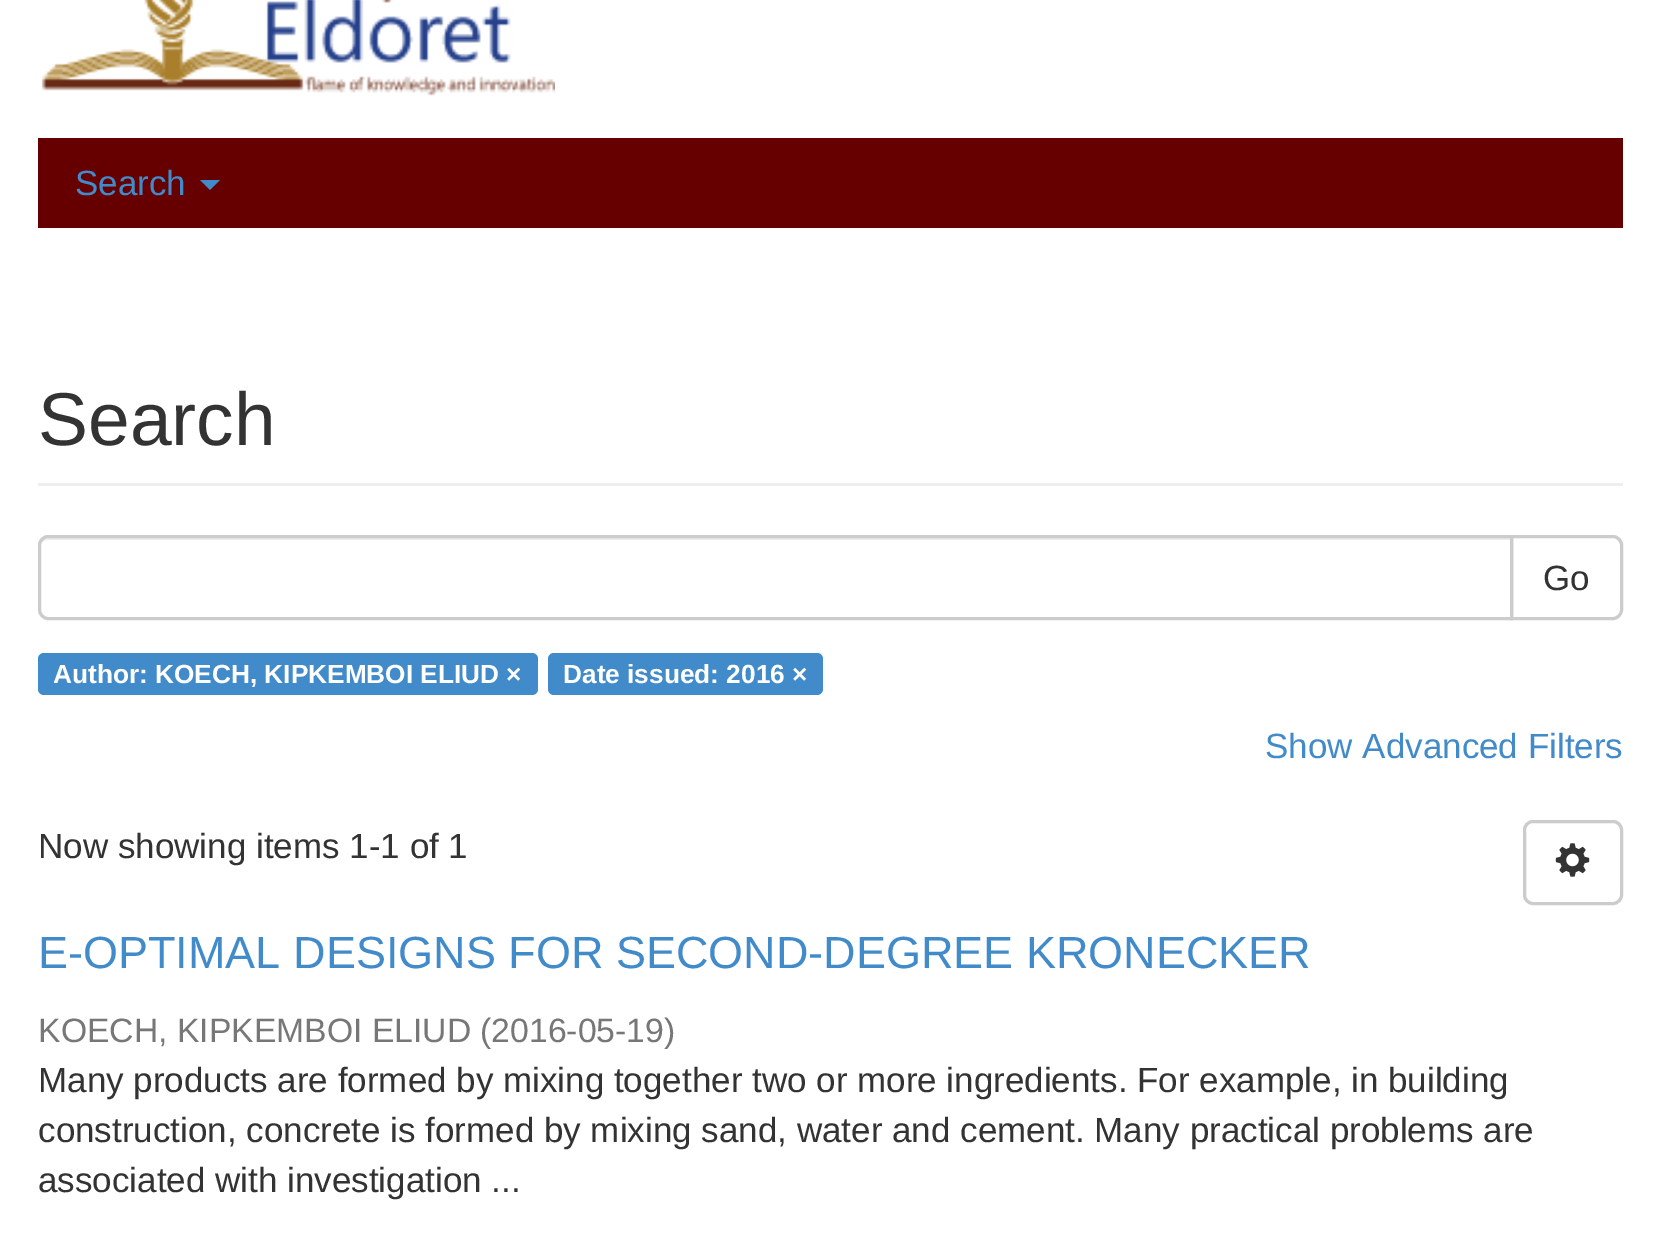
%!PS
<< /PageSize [1660 1241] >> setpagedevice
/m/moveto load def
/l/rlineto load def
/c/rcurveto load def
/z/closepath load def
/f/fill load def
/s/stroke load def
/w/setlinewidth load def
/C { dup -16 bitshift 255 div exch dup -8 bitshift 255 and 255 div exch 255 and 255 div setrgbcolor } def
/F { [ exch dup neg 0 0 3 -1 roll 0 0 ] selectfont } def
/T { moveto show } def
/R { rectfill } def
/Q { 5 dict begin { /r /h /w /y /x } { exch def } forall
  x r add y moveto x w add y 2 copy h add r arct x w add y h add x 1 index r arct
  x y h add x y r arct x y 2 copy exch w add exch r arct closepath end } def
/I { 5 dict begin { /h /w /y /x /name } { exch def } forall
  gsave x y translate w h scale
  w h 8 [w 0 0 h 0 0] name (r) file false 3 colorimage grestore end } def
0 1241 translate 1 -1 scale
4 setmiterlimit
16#FFFFFF C
0 0 1660 1241 R
(1.rgb) 41 0 514 96 I
16#660000 C
38 138 1585 90 R
/LiberationSans-Regular 35 F
16#428BCA C
(Search) 75 195 T
200 180 m 20 0 l -10 10 l z f
16#EEEEEE C
38 483 1585 3 R
/LiberationSans-Regular 75 F
16#333333 C
(Search) 38 445 T
16#CCCCCC C
3 w
1511.5 536.5 m 101.5 0 l 4.5 0 8.5 4 8.5 8.5 c 0 65 l 0 4.5 -4 8.5 -8.5 8.5 c -101.5 0 l z s
16#FFFFFF C
48 535 m 1465 0 l 0 85 l -1465 0 l -5.5 0 -10 -4.5 -10 -10 c 0 -65 l 0 -5.5 4.5 -10 10 -10 c z f
16#ECECEC C
48 540 m 1462 0 l 0 -2 l -1462 0 l -4 0 -8 4 -8 8 c 0 2 l 0 -5 3 -8 8 -8 c z f
16#CCCCCC C
48 536.5 m 1463.5 0 l 0 82 l -1463.5 0 l -4.5 0 -8.5 -4 -8.5 -8.5 c 0 -65 l 0 -4.5 4 -8.5 8.5 -8.5 c z s
/LiberationSans-Regular 35 F
16#333333 C
(Go) 1543 590 T
16#428BCA C
38 653 500 42 6 Q f
/LiberationSans-Bold 26.25 F
16#FFFFFF C
(Author: KOECH, KIPKEMBOI ELIUD ×) 53 683 T
16#428BCA C
548 653 275 42 6 Q f
16#FFFFFF C
(Date issued: 2016 ×) 563 683 T
/LiberationSans-Regular 35 F
16#428BCA C
(Show Advanced Filters) 1265 758 T
16#333333 C
(Now showing items 1-1 of 1) 38 858 T
16#CCCCCC C
1524.5 821.5 97 82 8.5 Q s
(2.rgb) 1555 843 35 34 I
/LiberationSans-Regular 45 F
16#428BCA C
(E-OPTIMAL DESIGNS FOR SECOND-DEGREE KRONECKER) 38 968 T
/LiberationSans-Regular 33.75 F
16#777777 C
(KOECH, KIPKEMBOI ELIUD) 38 1042 T
(\(2016-05-19\)) 480 1042 T
/LiberationSans-Regular 35 F
16#333333 C
(Many products are formed by mixing together two or more ingredients. For example, in building) 38 1092 T
(construction, concrete is formed by mixing sand, water and cement. Many practical problems are) 38 1142 T
(associated with investigation ...) 38 1192 T
showpage
